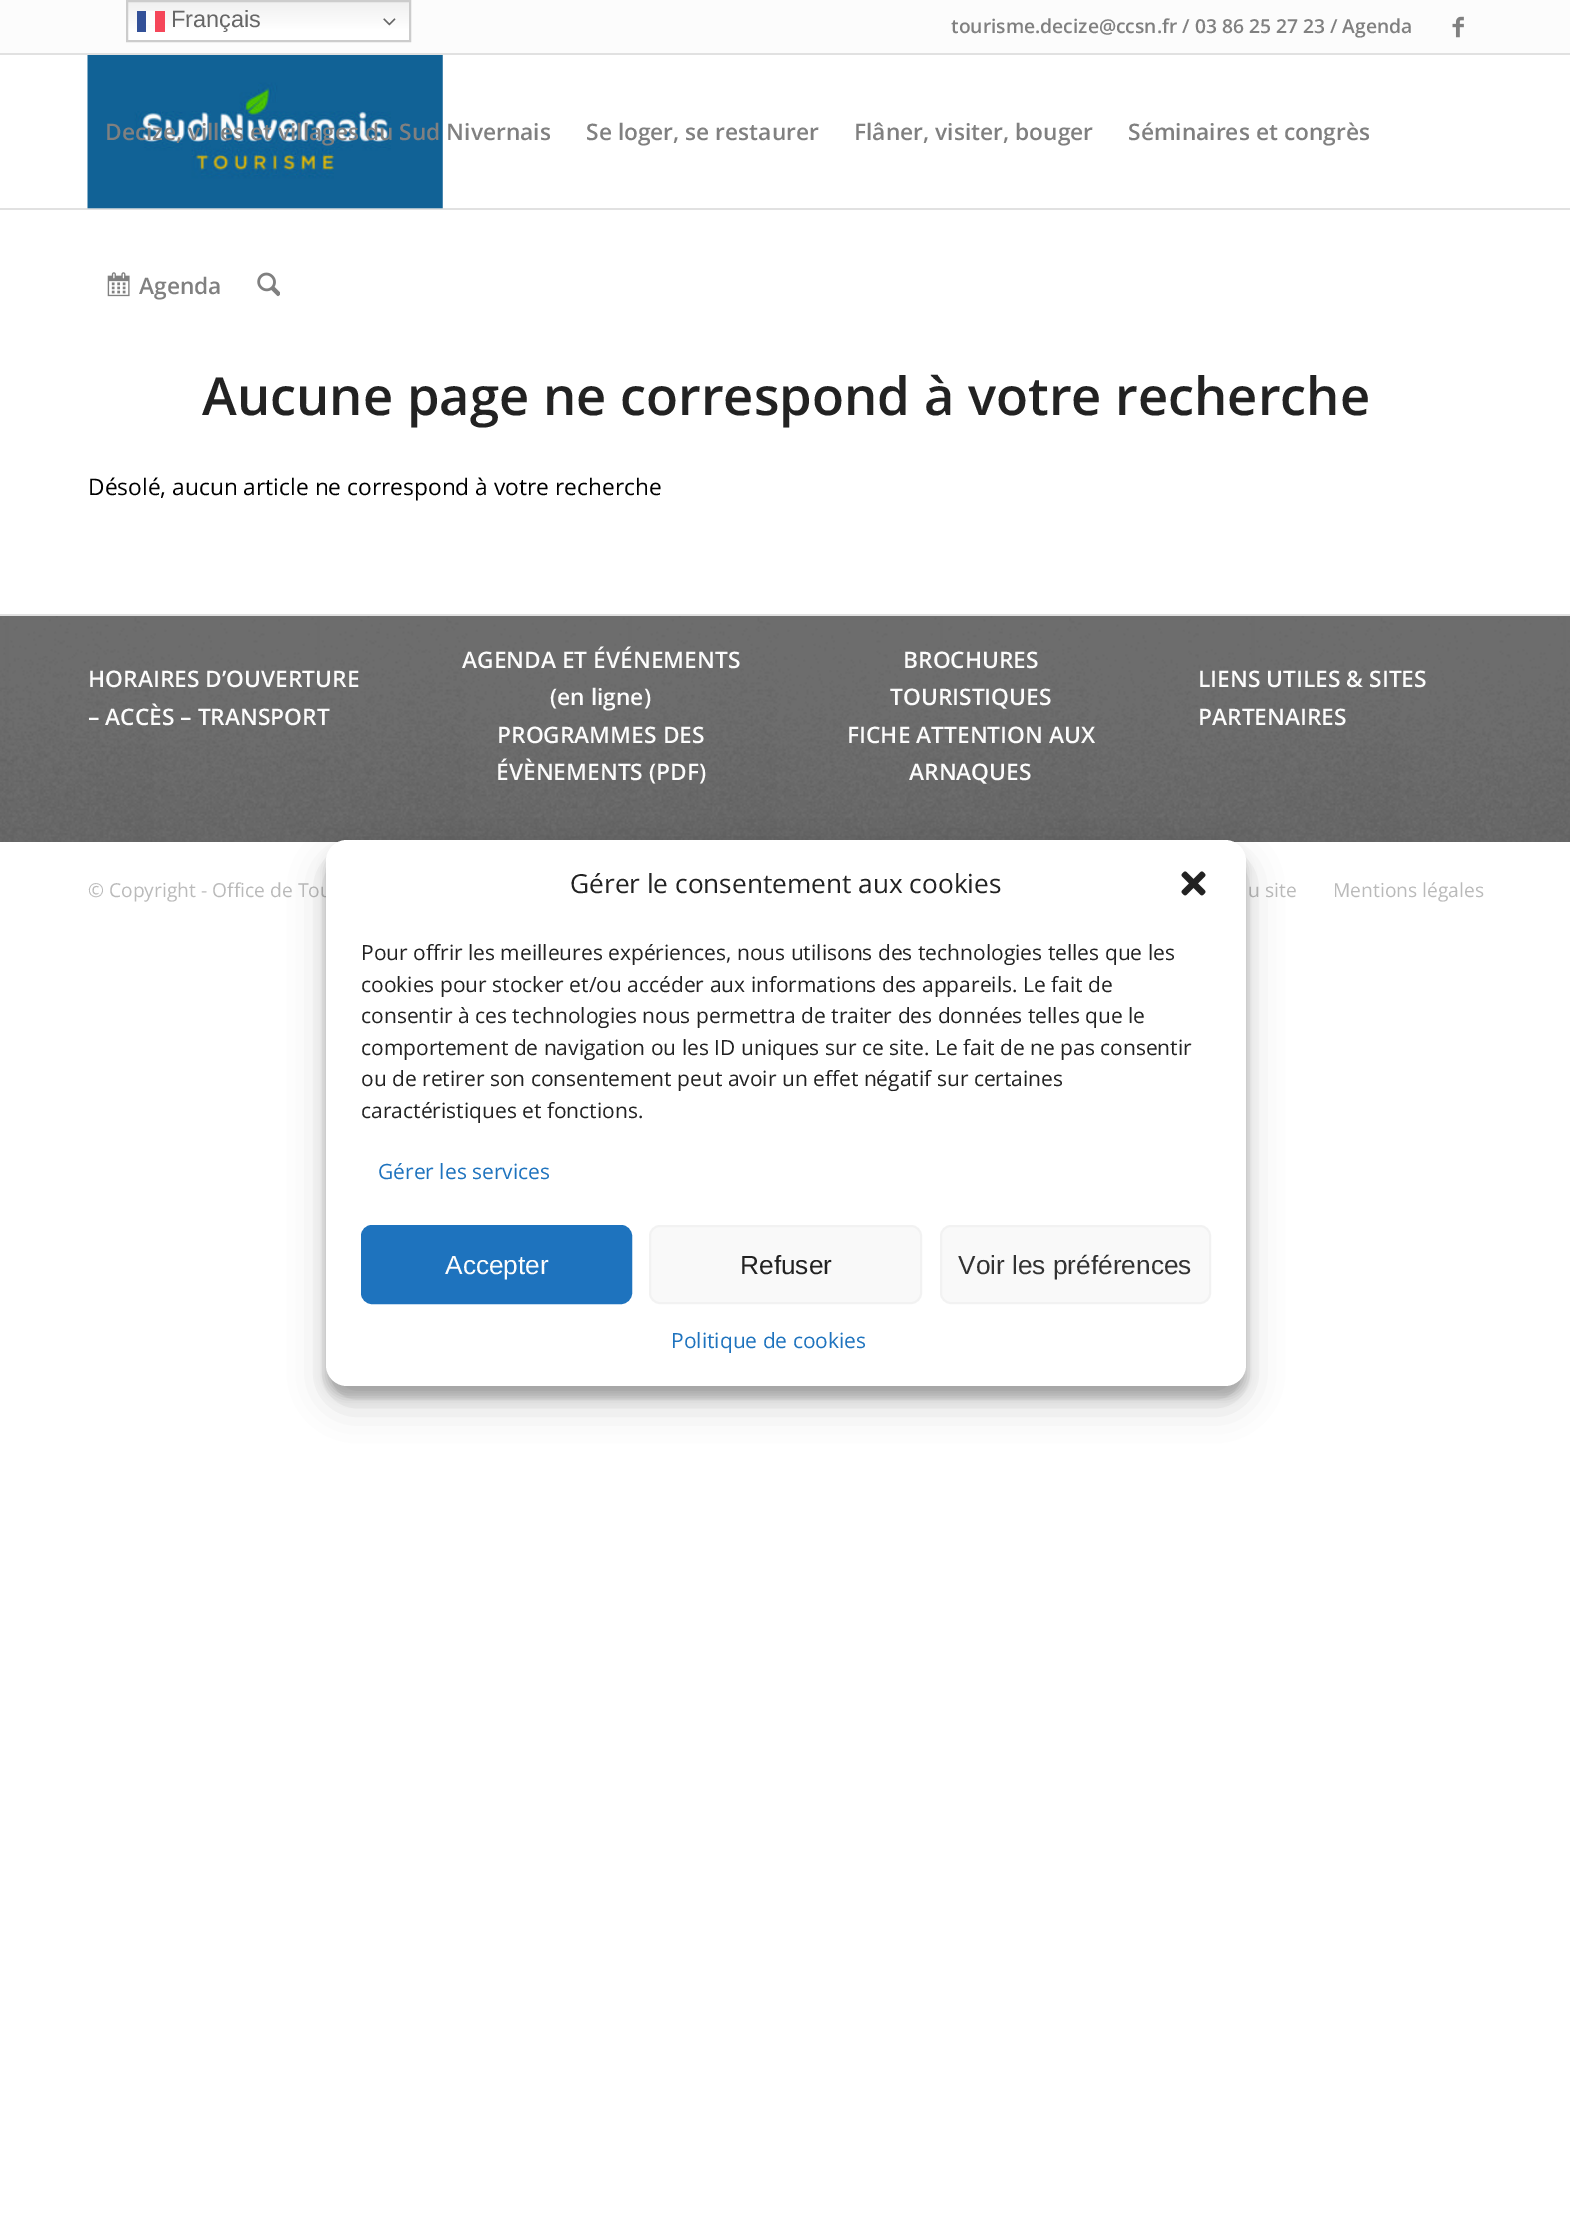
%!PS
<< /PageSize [1570 2224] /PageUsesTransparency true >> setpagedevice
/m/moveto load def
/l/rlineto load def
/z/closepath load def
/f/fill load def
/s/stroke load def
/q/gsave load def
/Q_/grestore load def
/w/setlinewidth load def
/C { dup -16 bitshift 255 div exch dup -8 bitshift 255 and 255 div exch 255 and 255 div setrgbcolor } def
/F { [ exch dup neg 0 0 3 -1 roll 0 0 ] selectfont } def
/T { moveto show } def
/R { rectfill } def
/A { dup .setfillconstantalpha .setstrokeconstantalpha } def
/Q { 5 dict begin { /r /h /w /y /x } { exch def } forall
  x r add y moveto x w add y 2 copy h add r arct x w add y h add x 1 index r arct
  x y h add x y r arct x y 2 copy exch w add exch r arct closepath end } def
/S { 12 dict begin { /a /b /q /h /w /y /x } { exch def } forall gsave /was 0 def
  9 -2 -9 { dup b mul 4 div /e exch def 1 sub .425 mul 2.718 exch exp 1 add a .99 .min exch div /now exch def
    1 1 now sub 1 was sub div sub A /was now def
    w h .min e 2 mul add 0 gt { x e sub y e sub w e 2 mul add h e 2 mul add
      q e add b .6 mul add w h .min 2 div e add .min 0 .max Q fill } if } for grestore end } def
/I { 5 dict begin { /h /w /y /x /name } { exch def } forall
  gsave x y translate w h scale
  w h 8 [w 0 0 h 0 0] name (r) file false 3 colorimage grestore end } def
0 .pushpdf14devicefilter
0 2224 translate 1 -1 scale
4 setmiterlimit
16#FFFFFF C
0 0 1570 2224 R
16#FCFCFC C
0 0 1570 53 R
q 128 2 m 281 0 l 0 38 l -281 0 l z clip newpath
<< /ShadingType 2 /ColorSpace /DeviceRGB /Coords [269 0 269 42] /Extend [true true] /Function << /FunctionType 3 /Domain [0 1] /Functions [<< /FunctionType 2 /Domain [0 1] /C0 [.937 .937 .937] /C1 [1 1 1] /N 1 >> << /FunctionType 2 /Domain [0 1] /C0 [1 1 1] /C1 [1 1 1] /N 1 >>] /Bounds [.7] /Encode [0 1 0 1] >> >> shfill Q_
q 146 11 m 9 0 l 0 14 l -9 0 l z clip newpath
<< /ShadingType 2 /ColorSpace /DeviceRGB /Coords [269 0 269 42] /Extend [true true] /Function << /FunctionType 3 /Domain [0 1] /Functions [<< /FunctionType 2 /Domain [0 1] /C0 [.988 .988 .988] /C1 [1 1 1] /N 1 >> << /FunctionType 2 /Domain [0 1] /C0 [1 1 1] /C1 [1 1 1] /N 1 >>] /Bounds [.7] /Encode [0 1 0 1] >> >> shfill Q_
16#CCCCCC C
2 w
127 1 283 40 rectstroke
16#335198 C
137 11 9 21 R
16#F54659 C
155 11 10 21 R
/LiberationSans-Regular 23.5 F
16#666666 C
(Français) 171 27 T
(1.rgb) 383 18 13 8 I
16#E1E1E1 C
0 53 1570 2 R
/OpenSans-SemiBold 19.25 F
16#808080 C
(tourisme.decize@ccsn.fr / 03 86 25 27 23 / Agenda) 951 33 T
(2.rgb) 1452 16 12 22 I
16#E1E1E1 C
0 208 1570 2 R
(3.rgb) 87 55 356 154 I
/OpenSans-SemiBold 22.75 F
16#808080 C
(Decize, villes et villages du Sud Nivernais) 105 140 T
(Se loger, se restaurer) 586 140 T
(Flâner, visiter, bouger) 854 140 T
(Séminaires et congrès) 1128 140 T
(4.rgb) 107 272 23 25 I
(Agenda) 139 294 T
(5.rgb) 257 272 23 25 I
/OpenSans-SemiBold 52.5 F
16#222222 C
(Aucune page ne correspond à votre recherche) 202 415 T
/OpenSans-Regular 22.75 F
16#000000 C
(Désolé, aucun article ne correspond à votre recherche) 88 495 T
16#595959 C
0 616 1570 226 R
(6.rgb) 0 616 1570 226 I
16#E1E1E1 C
0 614 1570 2 R
/OpenSans-SemiBold 22.75 F
16#FCFCFC C
(HORAIRES D’OUVERTURE) 88 687 T
(– ACCÈS – TRANSPORT) 88 725 T
(AGENDA ET ÉVÉNEMENTS) 462 668 T
(\(en ligne\)) 550 705 T
(PROGRAMMES DES) 497 743 T
(ÉVÈNEMENTS \(PDF\)) 496 780 T
(BROCHURES) 903 668 T
(TOURISTIQUES) 890 705 T
(FICHE ATTENTION AUX) 847 743 T
(ARNAQUES) 909 780 T
(LIENS UTILES & SITES) 1198 687 T
(PARTENAIRES) 1198 725 T
/OpenSans-Regular 19.25 F
16#BABABA C
(© Copyright - Office de Tou) 88 897 T
(u site) 1248 897 T
(Mentions légales) 1333 897 T
16#000000 C
326 851 920 546 21 5 .23 S
326 858 920 546 21 17.5 .19 S
16#FFFFFF C
326 840 920 546 21 Q f
/OpenSans-Regular 26.25 F
16#222222 C
(Gérer le consentement aux cookies) 570 893 T
(7.rgb) 1181 871 25 25 I
/OpenSans-Regular 21 F
(Pour offrir les meilleures expériences, nous utilisons des technologies telles que les) 361 960 T
(cookies pour stocker et/ou accéder aux informations des appareils. Le fait de) 361 992 T
(consentir à ces technologies nous permettra de traiter des données telles que le) 361 1023 T
(comportement de navigation ou les ID uniques sur ce site. Le fait de ne pas consentir) 361 1055 T
(ou de retirer son consentement peut avoir un effet négatif sur certaines) 361 1086 T
(caractéristiques et fonctions.) 361 1118 T
16#1E73BE C
(Gérer les services) 378 1179 T
362 1226 269 77 10 Q q f Q_
s
/LiberationSans-Regular 26.25 F
16#FCFCFC C
(Accepter) 445 1274 T
16#F9F9F9 C
650 1226 271 77 10 Q q f Q_
16#F2F2F2 C
s
16#222222 C
(Refuser) 740 1274 T
16#F9F9F9 C
941 1226 269 77 10 Q q f Q_
16#F2F2F2 C
s
16#333333 C
(Voir les préférences) 958 1274 T
/OpenSans-Regular 21 F
16#1E73BE C
(Politique de cookies) 671 1348 T
.poppdf14devicefilter showpage
